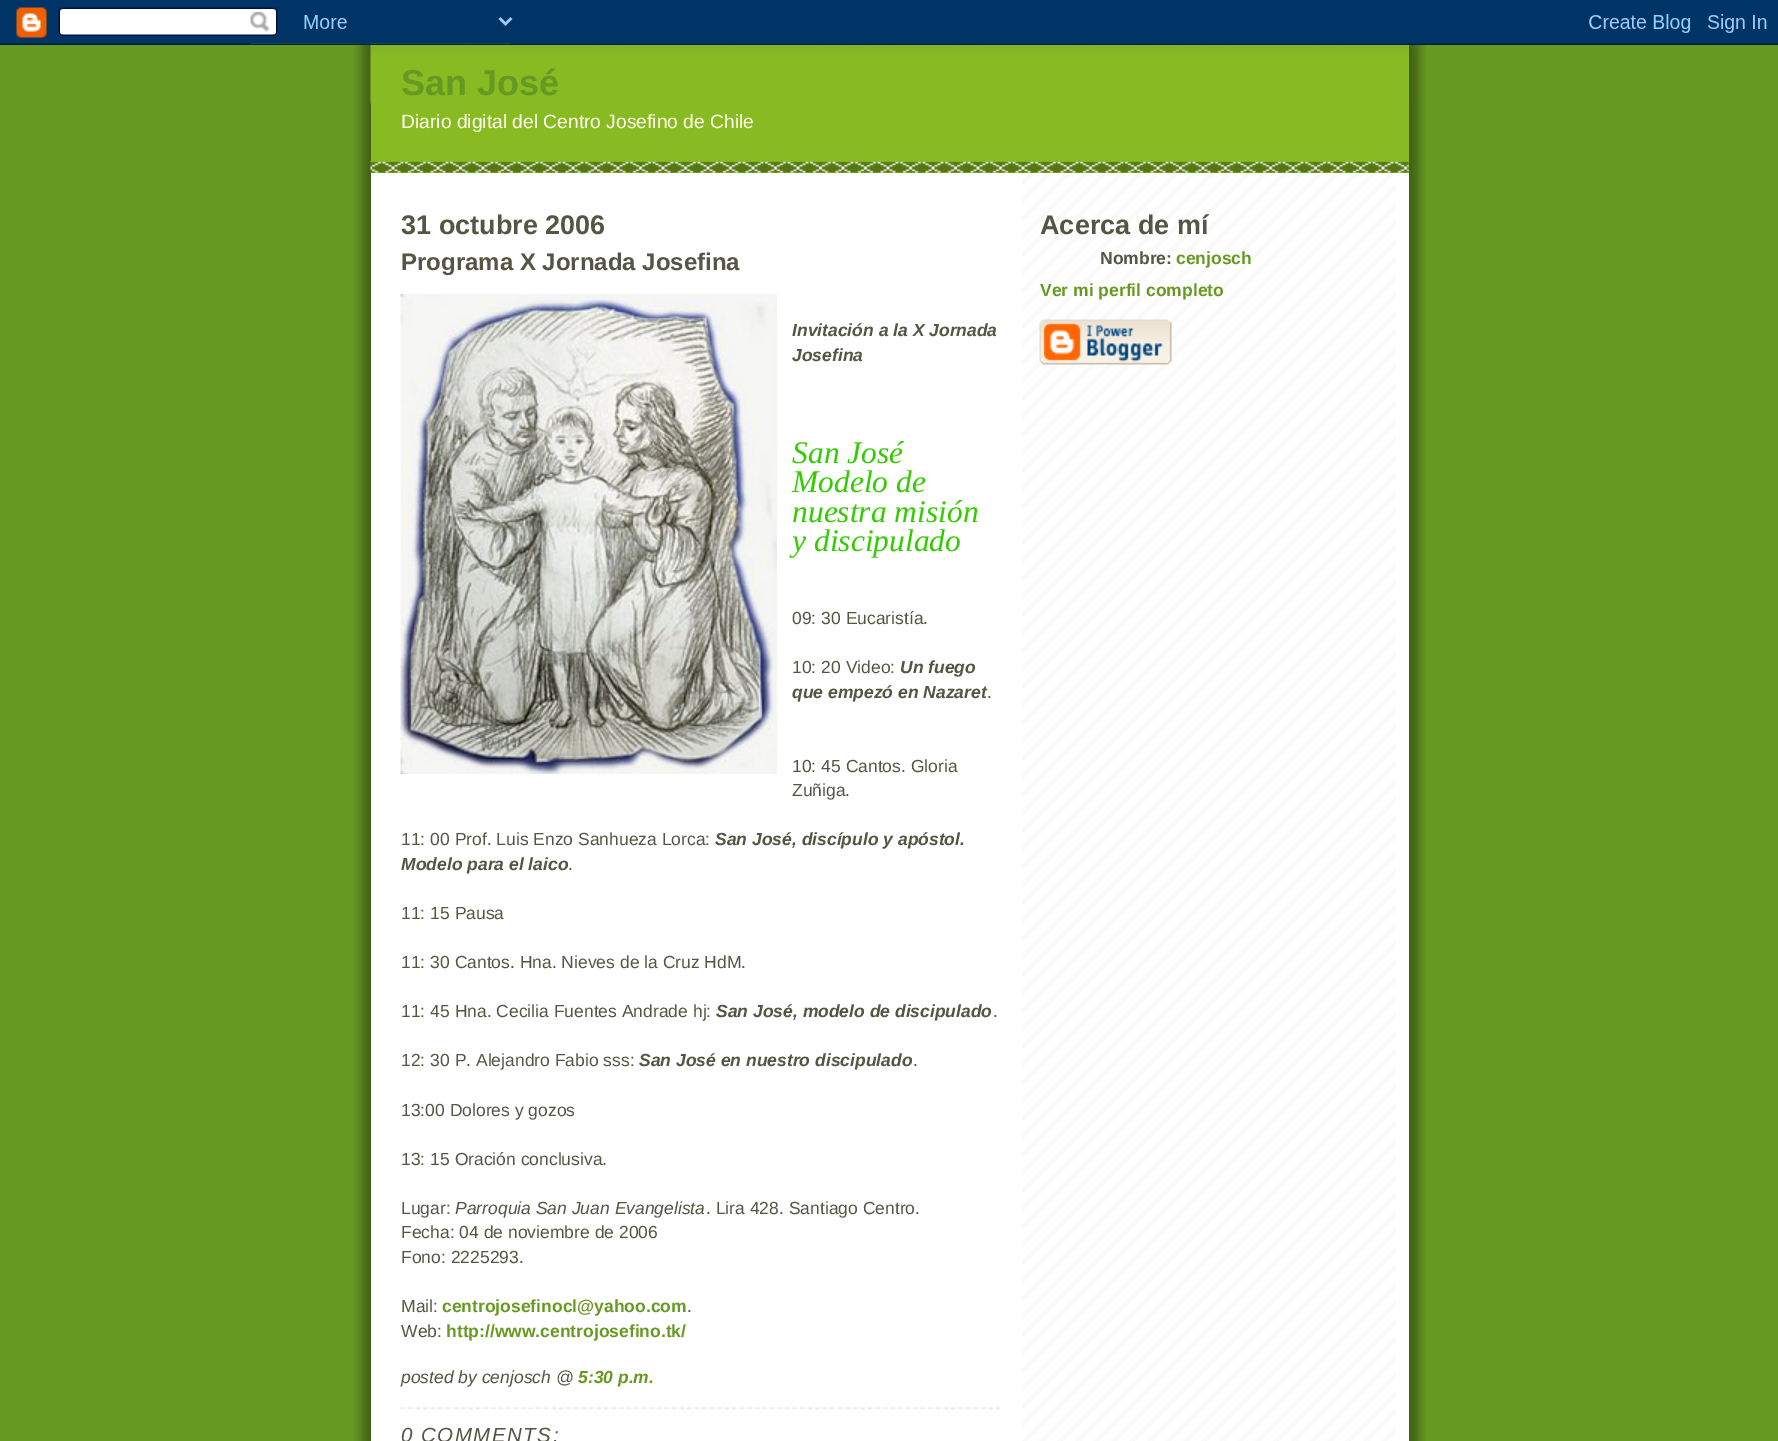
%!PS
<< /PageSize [1778 1441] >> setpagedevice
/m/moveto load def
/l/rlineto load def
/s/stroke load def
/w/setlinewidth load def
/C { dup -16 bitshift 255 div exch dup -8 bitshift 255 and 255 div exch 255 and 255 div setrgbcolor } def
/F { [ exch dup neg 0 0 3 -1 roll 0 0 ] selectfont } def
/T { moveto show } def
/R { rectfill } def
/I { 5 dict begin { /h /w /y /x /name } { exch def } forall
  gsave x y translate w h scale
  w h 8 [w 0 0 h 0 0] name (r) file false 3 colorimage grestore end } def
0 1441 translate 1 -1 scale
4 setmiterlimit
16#669922 C
0 0 1778 1441 R
(1.rgb) 354 43 1072 1398 I
16#88BB22 C
371 43 1038 130 R
(5.rgb) 370 43 1039 61 I
(2.rgb) 0 0 1778 45 I
16#FFFFFF C
371 173 1038 1268 R
(3.rgb) 1022 173 374 1268 I
(4.rgb) 370 160 1039 13 I
/LiberationSans-Bold 36 F
16#669922 C
(San José) 401 95 T
/LiberationSans-Regular 19.25 F
16#FFFFEE C
(Diario digital del Centro Josefino de Chile) 401 128 T
/LiberationSans-Bold 27 F
16#555544 C
(31 octubre 2006) 401 234 T
/LiberationSans-Bold 24 F
(Programa X Jornada Josefina) 401 270 T
(6.rgb) 400 294 377 480 I
/LiberationSans-BoldItalic 17.5 F
(Invitación a la X Jornada) 792 336 T
(Josefina) 792 361 T
/LiberationSerif-Italic 31.5 F
16#33CC00 C
(San José) 792 463 T
(Modelo de) 792 492 T
(nuestra misión) 792 522 T
(y discipulado) 792 551 T
/LiberationSans-Regular 17.5 F
16#555544 C
(09: 30 Eucaristía.) 792 624 T
(10: 20 Video:) 792 673 T
/LiberationSans-BoldItalic 17.5 F
(Un fuego) 900 673 T
(que empezó en Nazaret) 792 698 T
/LiberationSans-Regular 17.5 F
(.) 987 698 T
(10: 45 Cantos. Gloria) 792 772 T
(Zuñiga.) 792 796 T
(11: 00 Prof. Luis Enzo Sanhueza Lorca:) 401 845 T
/LiberationSans-BoldItalic 17.5 F
(San José, discípulo y apóstol.) 715 845 T
(Modelo para el laico) 401 870 T
/LiberationSans-Regular 17.5 F
(.) 568 870 T
(11: 15 Pausa) 401 919 T
(11: 30 Cantos. Hna. Nieves de la Cruz HdM.) 401 968 T
(11: 45 Hna. Cecilia Fuentes Andrade hj:) 401 1017 T
/LiberationSans-BoldItalic 17.5 F
(San José, modelo de discipulado) 716 1017 T
/LiberationSans-Regular 17.5 F
(.) 993 1017 T
(12: 30 P. Alejandro Fabio sss:) 401 1066 T
/LiberationSans-BoldItalic 17.5 F
(San José en nuestro discipulado) 639 1066 T
/LiberationSans-Regular 17.5 F
(.) 913 1066 T
(13:00 Dolores y gozos) 401 1116 T
(13: 15 Oración conclusiva.) 401 1165 T
(Lugar:) 401 1214 T
/LiberationSans-Italic 17.5 F
(Parroquia San Juan Evangelista) 455 1214 T
/LiberationSans-Regular 17.5 F
(. Lira 428. Santiago Centro.) 706 1214 T
(Fecha: 04 de noviembre de 2006) 401 1238 T
(Fono: 2225293.) 401 1263 T
(Mail:) 401 1312 T
/LiberationSans-Bold 17.5 F
16#669922 C
(centrojosefinocl@yahoo.com) 442 1312 T
/LiberationSans-Regular 17.5 F
16#555544 C
(.) 687 1312 T
(Web:) 401 1337 T
/LiberationSans-Bold 17.5 F
16#669922 C
(http://www.centrojosefino.tk/) 446 1337 T
/LiberationSans-Italic 17.5 F
16#555544 C
(posted by cenjosch @) 401 1383 T
/LiberationSans-BoldItalic 17.5 F
16#669922 C
(5:30 p.m.) 578 1383 T
16#EEEEDD C
1.5 w
[4.5 3.04] 0 setdash
400.5 1408 m 600 0 l s
/LiberationSans-Italic 20.5 F
16#555544 C
401 1442 m 1.5 0 (0 COMMENTS:) ashow
/LiberationSans-Bold 27 F
(Acerca de mí) 1040 234 T
/LiberationSans-Bold 17.5 F
(Nombre:) 1100 264 T
16#669922 C
(cenjosch) 1176 264 T
(Ver mi perfil completo) 1040 296 T
(7.rgb) 1039 319 133 46 I
showpage
